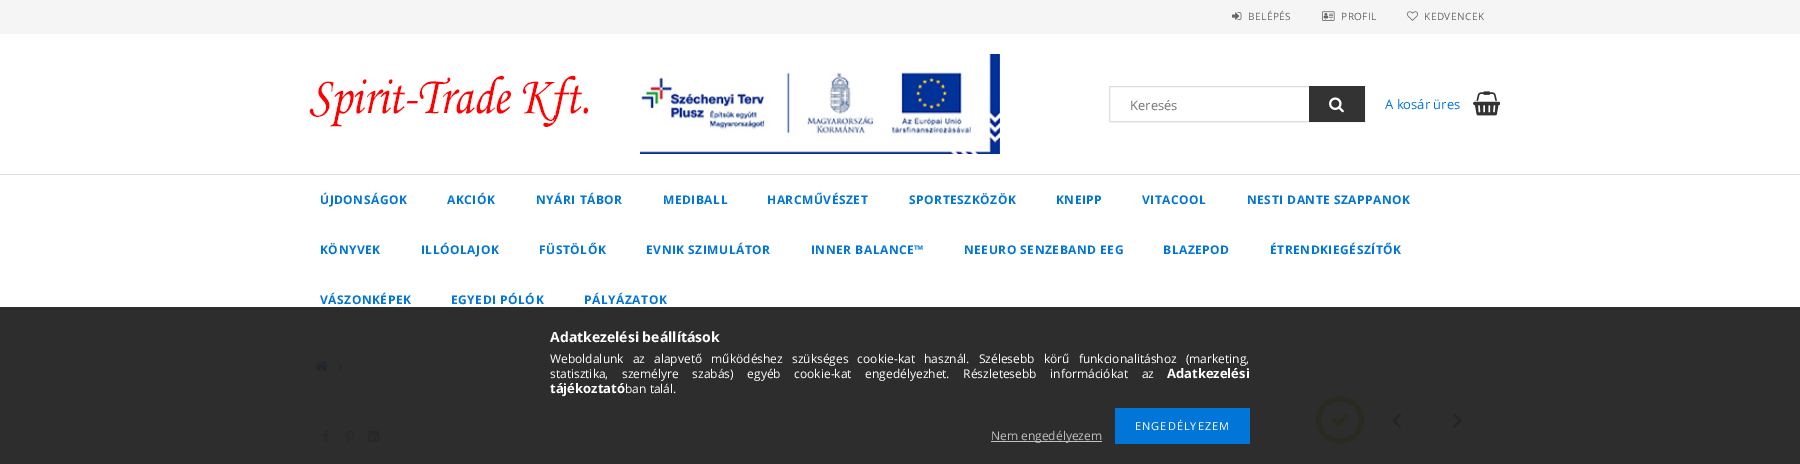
%!PS
<< /PageSize [1800 464] >> setpagedevice
/m/moveto load def
/s/stroke load def
/w/setlinewidth load def
/C { dup -16 bitshift 255 div exch dup -8 bitshift 255 and 255 div exch 255 and 255 div setrgbcolor } def
/F { [ exch dup neg 0 0 3 -1 roll 0 0 ] selectfont } def
/T { moveto show } def
/R { rectfill } def
/O { newpath 0 360 arc closepath } def
/I { 5 dict begin { /h /w /y /x /name } { exch def } forall
  gsave x y translate w h scale
  w h 8 [w 0 0 h 0 0] name (r) file false 3 colorimage grestore end } def
0 464 translate 1 -1 scale
4 setmiterlimit
16#FFFFFF C
0 0 1800 464 R
16#2D2D2D C
0 307 1800 157 R
16#F5F5F5 C
0 0 1800 34 R
(1.rgb) 1232 12 10 8 I
/OpenSans-Regular 10 F
16#666666 C
1248 20 m .5 0 (BELÉPÉS) ashow
(2.rgb) 1322 11 13 10 I
1341 20 m .5 0 (PROFIL) ashow
(3.rgb) 1407 11 11 10 I
1424 20 m .5 0 (KEDVENCEK) ashow
(4.rgb) 309 70 279 57 I
(5.rgb) 640 54 360 100 I
16#DDDDDD C
1109.5 86.5 255 35 rectstroke
/OpenSans-Regular 13 F
16#757575 C
(Keresés) 1130 110 T
16#333333 C
1309 86 56 36 R
(6.rgb) 1329 97 15 16 I
16#0275D8 C
(A kosár üres) 1385 109 T
(7.rgb) 1473 91 27 25 I
16#DDDDDD C
0 174 1800 1 R
/OpenSans-Bold 12 F
16#0275D8 C
320 204 m .5 0 (ÚJDONSÁGOK) ashow
447 204 m .5 0 (AKCIÓK) ashow
536 204 m .5 0 (NYÁRI TÁBOR) ashow
663 204 m .5 0 (MEDIBALL) ashow
767 204 m .5 0 (HARCMŰVÉSZET) ashow
909 204 m .5 0 (SPORTESZKÖZÖK) ashow
1056 204 m .5 0 (KNEIPP) ashow
1142 204 m .5 0 (VITACOOL) ashow
1247 204 m .5 0 (NESTI DANTE SZAPPANOK) ashow
320 254 m .5 0 (KÖNYVEK) ashow
421 254 m .5 0 (ILLÓOLAJOK) ashow
539 254 m .5 0 (FÜSTÖLŐK) ashow
646 254 m .5 0 (EVNIK SZIMULÁTOR) ashow
811 254 m .5 0 (INNER BALANCE™) ashow
964 254 m .5 0 (NEEURO SENZEBAND EEG) ashow
1163 254 m .5 0 (BLAZEPOD) ashow
1270 254 m .5 0 (ÉTRENDKIEGÉSZÍTŐK) ashow
320 304 m .5 0 (VÁSZONKÉPEK) ashow
451 304 m .5 0 (EGYEDI PÓLÓK) ashow
584 304 m .5 0 (PÁLYÁZATOK) ashow
(8.rgb) 315 361 13 10 I
(9.rgb) 338 362 5 9 I
(10.rgb) 322 429 7 13 I
(11.rgb) 345 430 10 13 I
(12.rgb) 368 430 12 12 I
16#292B20 C
5 w
1340 420 21.5 O s
(13.rgb) 1331 413 18 14 I
(14.rgb) 1392 413 9 15 I
(15.rgb) 1453 413 9 15 I
/OpenSans-Bold 14 F
16#FFFFFF C
(Adatkezelési beállítások) 550 342 T
/OpenSans-Regular 12 F
550 363 m 6 0 32 (Weboldalunk az alapvető működéshez szükséges cookie-kat használ. Szélesebb körű funkcionalitáshoz \(marketing,) widthshow
550 378 m 10.5 0 32 (statisztika, személyre szabás\) egyéb cookie-kat engedélyezhet. Részletesebb információkat az) widthshow
/OpenSans-Bold 13 F
(Adatkezelési) 1167 378 T
(tájékoztató) 550 393 T
/OpenSans-Regular 12 F
(ban talál.) 625 393 T
16#0275D8 C
1115 408 135 36 R
/OpenSans-Regular 11 F
16#FFFFFF C
1135 430 m 1 0 (ENGEDÉLYEZEM) ashow
16#C0C0C0 C
991 441 111 1 R
/OpenSans-Regular 12 F
(Nem engedélyezem) 991 440 T
showpage
